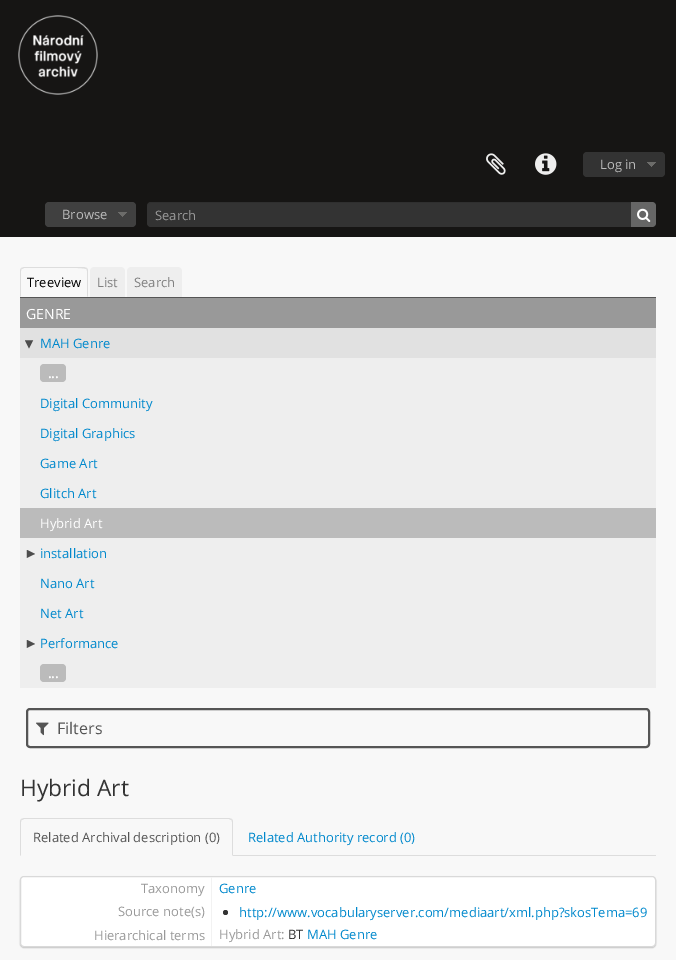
%!PS
<< /PageSize [676 960] /PageUsesTransparency true >> setpagedevice
/m/moveto load def
/l/rlineto load def
/c/rcurveto load def
/z/closepath load def
/f/fill load def
/s/stroke load def
/q/gsave load def
/Q_/grestore load def
/w/setlinewidth load def
/C { dup -16 bitshift 255 div exch dup -8 bitshift 255 and 255 div exch 255 and 255 div setrgbcolor } def
/F { [ exch dup neg 0 0 3 -1 roll 0 0 ] selectfont } def
/T { moveto show } def
/R { rectfill } def
/A { dup .setfillconstantalpha .setstrokeconstantalpha } def
/O { newpath 0 360 arc closepath } def
/Q { 5 dict begin { /r /h /w /y /x } { exch def } forall
  x r add y moveto x w add y 2 copy h add r arct x w add y h add x 1 index r arct
  x y h add x y r arct x y 2 copy exch w add exch r arct closepath end } def
/S { 12 dict begin { /a /b /q /h /w /y /x } { exch def } forall gsave /was 0 def
  9 -2 -9 { dup b mul 4 div /e exch def 1 sub .425 mul 2.718 exch exp 1 add a .99 .min exch div /now exch def
    1 1 now sub 1 was sub div sub A /was now def
    w h .min e 2 mul add 0 gt { x e sub y e sub w e 2 mul add h e 2 mul add
      q e add b .6 mul add w h .min 2 div e add .min 0 .max Q fill } if } for grestore end } def
/I { 5 dict begin { /h /w /y /x /name } { exch def } forall
  gsave x y translate w h scale
  w h 8 [w 0 0 h 0 0] name (r) file false 3 colorimage grestore end } def
0 .pushpdf14devicefilter
0 960 translate 1 -1 scale
4 setmiterlimit
16#F8F8F8 C
0 0 676 960 R
16#161514 C
0 0 676 237 R
(1.rgb) 18 15 80 80 I
(2.rgb) 486 153 20 22 I
(3.rgb) 535 153 22 22 I
16#333333 C
583 152 82 25 4 Q f
(4.rgb) 647 162 9 5 I
/OpenSans-Regular 13 F
16#BBBBBB C
(Log in) 600 169 T
16#404040 C
45 202 91 25 4 Q f
(5.rgb) 118 212 9 5 I
16#BBBBBB C
(Browse) 62 219 T
16#333333 C
147 202 509 25 4 Q f
0.07 A
16#000000 C
151 203 m 501 0 l 2 0 4 2 4 4 c 0 -1 l 0 -2 -2 -4 -4 -4 c -501 0 l -2 0 -4 2 -4 4 c 0 1 l 0 -2 2 -4 4 -4 c z f
1 A
16#999999 C
(Search) 155 220 T
16#666666 C
631 202 m 21 0 l 2 0 4 2 4 4 c 0 17 l 0 2 -2 4 -4 4 c -21 0 l z f
(6.rgb) 637 208 14 14 I
16#555555 C
20 297 636 1 R
16#DDDDDD C
24 267 m -3 1 l 1 1 l 2 -1 l 10 0 l 6 0 50 -1 52 1 c 1 -1 l -3 -1 l z f
88 297 m 0 -26 l 0 -1 -.5 -2 -1 -3 c -1 1 l 1 0 1 1 1 2 c 0 25 l z f
20 297 m 1 -1 l 0 -25 l 0 -1 0 -2 1 -2 c -1 -1 l -.5 1 -1 2 -1 3 c z f
16#000000 C
(Treeview) 27 287 T
16#EEEEEE C
94 267 m 27 0 l 2 0 4 2 4 4 c 0 26 l -35 0 l 0 -26 l 0 -2 2 -4 4 -4 c z f
16#808080 C
(List) 97 287 T
16#EEEEEE C
131 267 m 47 0 l 2 0 4 2 4 4 c 0 26 l -55 0 l 0 -26 l 0 -2 2 -4 4 -4 c z f
16#808080 C
(Search) 134 287 T
16#EEEEEE C
20 358 636 330 R
16#999999 C
20 298 636 30 R
/OpenSans-Regular 14 F
16#FFFFFF C
(GENRE) 26 319 T
16#E1E1E1 C
20 328 636 30 R
(7.rgb) 25 340 9 9 I
/OpenSans-Regular 13 F
16#0088CC C
(MAH Genre) 40 348 T
16#BBBBBB C
40 364 26 18 4 Q f
/OpenSans-Bold 13 F
16#FFFFFF C
(...) 48 378 T
/OpenSans-Regular 13 F
16#0088CC C
(Digital Community) 40 408 T
(Digital Graphics) 40 438 T
(Game Art) 40 468 T
(Glitch Art) 40 498 T
16#BBBBBB C
20 508 636 30 R
16#FFFFFF C
(Hybrid Art) 40 528 T
(8.rgb) 26 550 9 8 I
16#0088CC C
(installation) 40 558 T
(Nano Art) 40 588 T
(Net Art) 40 618 T
(8.rgb) 26 640 9 8 I
(Performance) 40 648 T
16#BBBBBB C
40 664 26 18 4 Q f
/OpenSans-Bold 13 F
16#FFFFFF C
(...) 48 678 T
16#555555 C
2 w
27 709 622 38 3 Q s
(9.rgb) 36 722 13 14 I
/OpenSans-Regular 16 F
(Filters) 57 734 T
/OpenSans-Regular 22.75 F
16#333333 C
(Hybrid Art) 20 796 T
16#DDDDDD C
233 855 423 1 R
24 818 m -3 1 l 1 1 l 2 -1 l 205 0 l 2 1 l 1 -1 l -3 -1 l z f
233 856 m 0 -34 l 0 -1 -.5 -2 -1 -3 c -1 1 l 1 0 1 1 1 2 c 0 33 l z f
20 856 m 1 -1 l 0 -33 l 0 -1 0 -2 1 -2 c -1 -1 l -.5 1 -1 2 -1 3 c z f
/OpenSans-Regular 13 F
16#555555 C
(Related Archival description \(0\)) 33 842 T
16#0088CC C
(Related Authority record \(0\)) 248 842 T
16#000000 C
20 877 636 71 4 .5 .2 S
16#FFFFFF C
20.5 876.5 635 70 3.5 Q q f Q_
16#D9D9D9 C
1 w
s
16#F2F2F2 C
211 877 1 69 R
16#999999 C
(Taxonomy) 141 893 T
16#0088CC C
(Genre) 219 893 T
16#999999 C
(Source note\(s\)) 118 916 T
16#333333 C
225.5 912.5 2.5 O f
16#0088CC C
(http://www.vocabularyserver.com/mediaart/xml.php?skosTema=69) 239 917 T
16#999999 C
(Hierarchical terms) 94 940 T
(Hybrid Art:) 219 939 T
16#333333 C
(BT) 288 939 T
16#0088CC C
(MAH Genre) 307 939 T
.poppdf14devicefilter showpage
